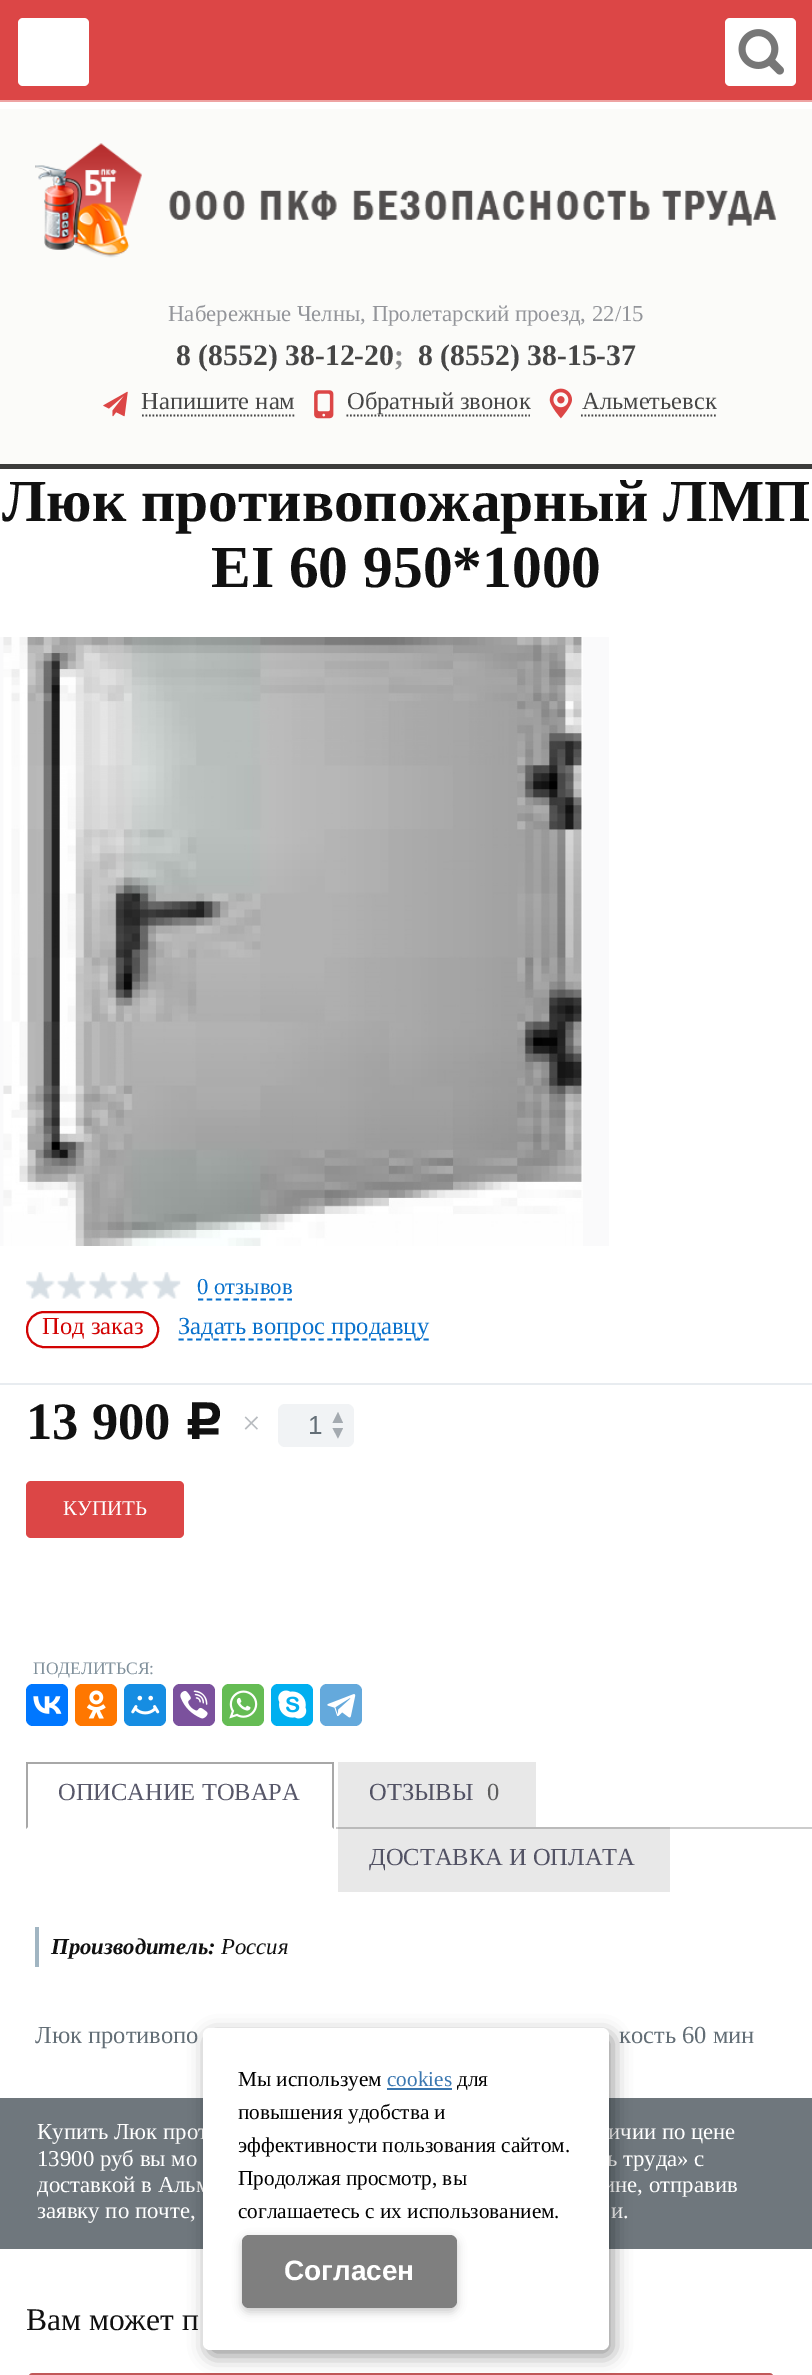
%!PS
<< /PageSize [812 2375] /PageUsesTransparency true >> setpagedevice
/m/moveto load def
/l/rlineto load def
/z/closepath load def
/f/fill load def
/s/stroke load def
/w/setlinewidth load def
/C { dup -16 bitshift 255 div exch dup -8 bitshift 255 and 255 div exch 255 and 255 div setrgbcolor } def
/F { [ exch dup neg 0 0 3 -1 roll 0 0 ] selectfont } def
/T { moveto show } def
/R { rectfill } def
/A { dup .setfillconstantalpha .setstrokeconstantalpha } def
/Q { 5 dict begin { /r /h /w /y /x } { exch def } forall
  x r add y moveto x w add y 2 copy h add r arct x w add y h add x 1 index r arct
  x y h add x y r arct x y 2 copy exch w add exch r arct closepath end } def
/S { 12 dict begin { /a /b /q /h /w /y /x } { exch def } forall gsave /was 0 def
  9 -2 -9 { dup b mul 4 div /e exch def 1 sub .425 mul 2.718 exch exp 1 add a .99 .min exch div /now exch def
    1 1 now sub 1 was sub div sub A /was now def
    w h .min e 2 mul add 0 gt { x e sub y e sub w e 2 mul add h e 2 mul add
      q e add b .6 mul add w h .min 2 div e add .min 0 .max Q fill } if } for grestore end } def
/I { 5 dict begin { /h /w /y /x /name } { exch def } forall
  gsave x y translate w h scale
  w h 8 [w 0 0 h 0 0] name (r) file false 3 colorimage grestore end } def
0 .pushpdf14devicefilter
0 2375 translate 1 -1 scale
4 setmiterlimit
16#FFFFFF C
0 0 812 2375 R
16#E8E8E8 C
338 1829 332 63 R
16#DC4646 C
0 0 812 100 R
16#EEA3A3 C
0 100 812 2 R
16#FFFFFF C
18 18 71 68 5 Q f
725 18 71 68 5 Q f
(1.rgb) 738 29 46 46 I
16#FBFBF9 C
0 109 812 355 R
(2.rgb) 35 143 742 115 I
/LiberationSerif-Regular 22.75 F
16#93959A C
(Набережные Челны, Пролетарский проезд, 22/15) 168 321 T
/LiberationSerif-Bold 29.75 F
16#464646 C
(8 \(8552\) 38-12-20) 176 365 T
16#8D8D8F C
(;) 394 365 T
16#464646 C
(8 \(8552\) 38-15-37) 418 365 T
(3.rgb) 103 391 25 26 I
1.8 w
[1.75 1.75] 0 setdash
142 415.5 m 154 0 l s
/LiberationSerif-Regular 24.5 F
(Напишите нам) 141 409 T
(4.rgb) 314 390 20 29 I
346.5 415.5 m 183.5 0 l s
(Обратный звонок) 347 409 T
(5.rgb) 549 388 23 31 I
581 415.5 m 135 0 l s
(Альметьевск) 582 409 T
16#3C3C3B C
0 464 812 5 R
/LiberationSerif-Bold 59.5 F
16#111111 C
(Люк противопожарный ЛМП) 2 521 T
(ЕI 60 950*1000) 211 587 T
16#FAFAFB C
0 637 609 609 R
(6.rgb) 3 637 580 609 I
(7.rgb) 26 1272 155 27 I
16#0971CC C
[5.25 3.68] 0 setdash
198 1299.5 m 94 0 l s
/LiberationSerif-Regular 22.75 F
(0 отзывов) 197 1294 T
16#D20303 C
2 w
[] 0 setdash
27 1312 131 35 17 Q s
/LiberationSerif-Regular 24.5 F
(Под заказ) 42 1334 T
16#0971CC C
1.8 w
[5.25 3.5] 0 setdash
178.5 1339.5 m 250.5 0 l s
(Задать вопрос продавцу) 178 1334 T
16#E8ECF0 C
0 1383 812 2 R
/LiberationSerif-Bold 52.5 F
16#111111 C
(13 900) 26 1439 T
/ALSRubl-Regular 52.5 F
(c) 184 1439 T
/LiberationSerif-Regular 33 F
16#B8BCC0 C
(×) 242 1434 T
16#F1F3F5 C
278 1404 76 43 7 Q f
/LiberationSans-Regular 26 F
16#636E76 C
(1) 308 1434 T
16#A4AAB0 C
343 1423 m -10.5 0 l 5.5 -11 l z 332.5 1428 m 10.5 0 l -5 10.5 l z f
16#DC4646 C
26 1481 158 57 5 Q f
/LiberationSerif-Regular 21 F
16#FFFFFF C
(КУПИТЬ) 63 1515 T
/LiberationSerif-Regular 17.5 F
16#81919C C
(ПОДЕЛИТЬСЯ:) 33 1674 T
16#0077FF C
26 1684 42 42 7 Q f
(8.rgb) 33 1696 29 18 I
16#FF7700 C
75 1684 42 42 7 Q f
(9.rgb) 86 1690 20 29 I
16#168DE2 C
124 1684 42 42 7 Q f
(10.rgb) 131 1695 29 20 I
16#7B519D C
173 1684 42 42 7 Q f
(11.rgb) 180 1690 28 29 I
16#65BC54 C
222 1684 42 42 7 Q f
(12.rgb) 229 1690 29 29 I
16#00AFF0 C
271 1684 42 42 7 Q f
(13.rgb) 278 1690 29 29 I
16#64A9DC C
320 1684 42 42 7 Q f
(14.rgb) 327 1694 29 24 I
16#A8A8A8 C
26 1762 m 308 0 l -2 2 l -304 0 l z f
0.34 A
16#000000 C
334 1762 m 0 67 l -2 -2 l 0 -63 l z f
26 1829 m 0 -67 l 2 2 l 0 63 l z f
/LiberationSerif-Regular 24.5 F
1 A
16#58586A C
(ОПИСАНИЕ ТОВАРА) 58 1800 T
16#CCCCCC C
336 1827 476 2 R
16#BABABA C
338 1827 332 2 R
16#E8E8E8 C
338 1762 198 65 R
16#525264 C
(ОТЗЫВЫ) 369 1800 T
16#5E5E5E C
(0) 487 1800 T
16#525264 C
(ДОСТАВКА И ОПЛАТА) 369 1865 T
16#A1B5C2 C
35 1927 4 40 R
/LiberationSerif-BoldItalic 22.75 F
16#111111 C
(Производитель:) 51 1954 T
/LiberationSerif-Italic 22.75 F
(Россия) 221 1954 T
/LiberationSerif-Regular 24.5 F
16#636E76 C
(Люк противопо) 35 2043 T
(кость 60 мин) 619 2043 T
16#6F777D C
0 2098 812 151 R
/LiberationSerif-Regular 22.75 F
16#FFFFFF C
(Купить Люк прот) 37 2139 T
(ичии по цене) 608 2139 T
(13900 руб вы мо) 37 2166 T
(ь труда» с) 607 2166 T
(доставкой в Альм) 37 2192 T
(ине, отправив) 603 2192 T
(заявку по почте,) 37 2218 T
(и.) 611 2218 T
/LiberationSerif-Regular 31.5 F
16#111111 C
(Вам может п) 26 2330 T
16#C15858 C
2 w
[] 0 setdash
29 2374 744 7 4 Q s
16#000000 C
207 2034 406 322 7 9 .4 S
16#FFFFFF C
203 2028 406 322 7 Q f
/LiberationSerif-Regular 21.25 F
16#000000 C
(Мы используем) 238 2086 T
16#3A77B0 C
(cookies) 387 2086 T
387 2088 65 2 R
16#000000 C
(для) 457 2086 T
(повышения удобства и) 238 2119 T
(эффективности пользования сайтом.) 238 2152 T
(Продолжая просмотр, вы) 238 2185 T
(соглашаетесь с их использованием.) 238 2218 T
242 2238 215 74 7 4.5 .2 S
16#7F7F7F C
242 2235 215 73 7 Q f
/LiberationSans-Bold 28 F
16#FFFFFF C
(Cогласен) 284 2280 T
.poppdf14devicefilter showpage
